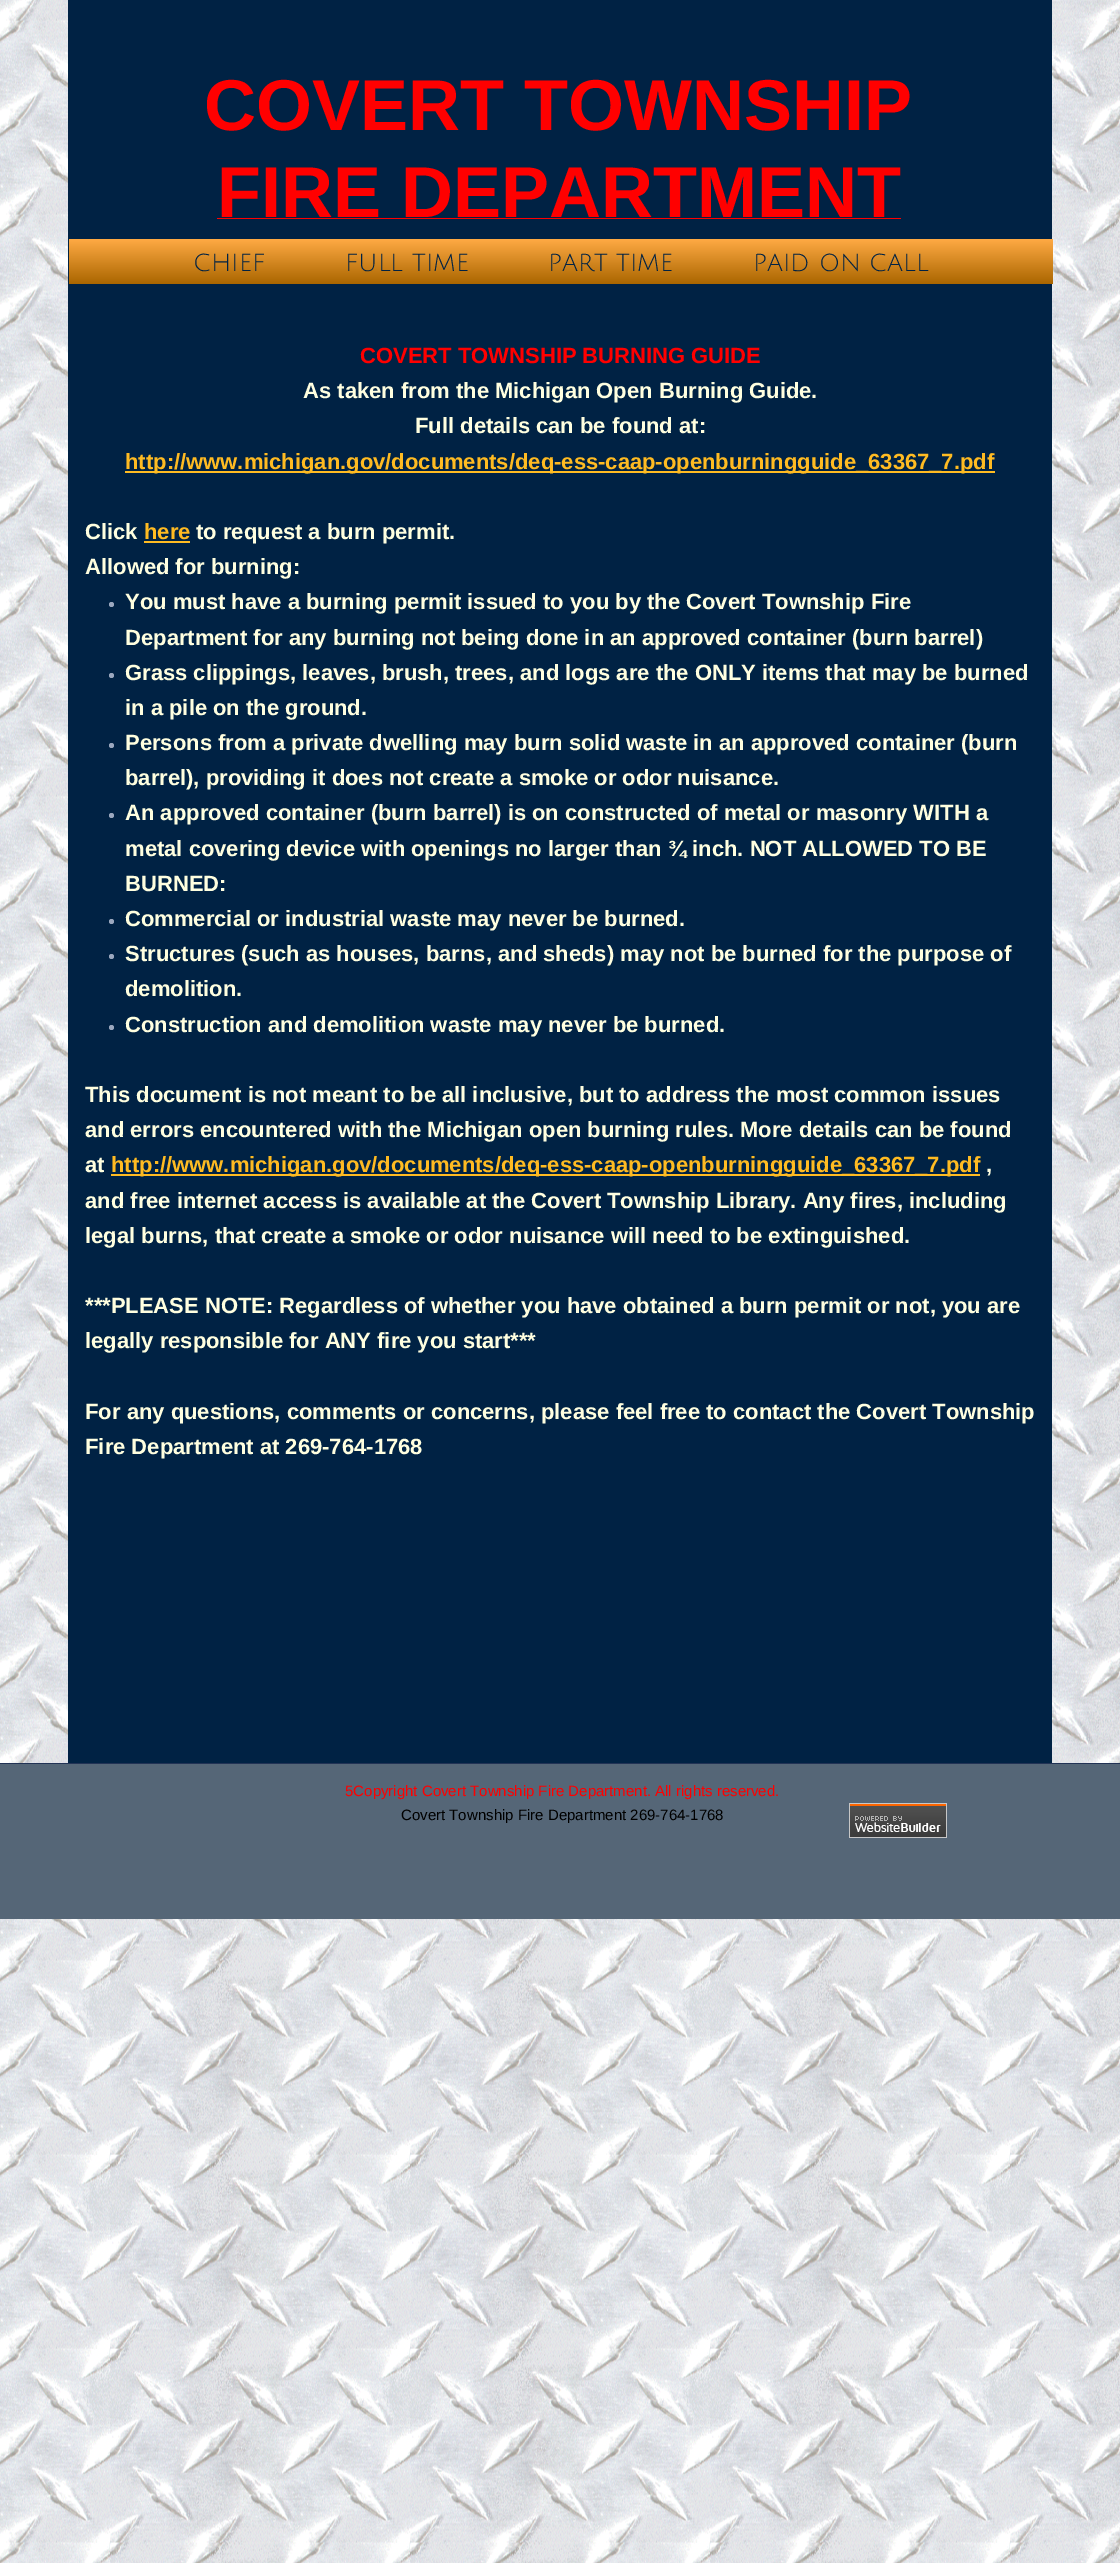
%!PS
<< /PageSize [1120 2563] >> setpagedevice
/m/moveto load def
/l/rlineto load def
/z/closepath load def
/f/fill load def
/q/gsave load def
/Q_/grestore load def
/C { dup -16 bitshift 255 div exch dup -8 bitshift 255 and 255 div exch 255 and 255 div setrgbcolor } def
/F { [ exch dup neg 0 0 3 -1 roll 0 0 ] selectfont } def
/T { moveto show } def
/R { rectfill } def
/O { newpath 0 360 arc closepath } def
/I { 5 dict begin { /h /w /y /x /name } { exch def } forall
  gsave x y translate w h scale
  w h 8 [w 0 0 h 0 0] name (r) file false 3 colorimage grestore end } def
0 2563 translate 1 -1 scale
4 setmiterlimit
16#FFFFFF C
0 0 1120 2563 R
(1.rgb) 0 0 1120 2563 I
16#002244 C
68 0 984 1763 R
/LiberationSans-Bold 72 F
16#FF0000 C
(COVERT TOWNSHIP) 204 130 T
(FIRE DEPARTMENT) 217 217 T
217 218 684 1 R
q 69 239 m 984 0 l 0 45 l -984 0 l z clip newpath
<< /ShadingType 2 /ColorSpace /DeviceRGB /Coords [561 239 561 284] /Extend [true true] /Function << /FunctionType 2 /Domain [0 1] /C0 [1 .667 .267] /C1 [.667 .4 0] /N 1 >> >> shfill Q_
/JuliusSansOne-Regular 24 F
16#002244 C
(CHIEF) 193 271 T
(FULL TIME) 345 271 T
(PART TIME) 548 271 T
(PAID ON CALL) 753 271 T
/LiberationSans-Bold 22 F
16#FF0000 C
(COVERT TOWNSHIP BURNING GUIDE) 360 363 T
16#FFFFE0 C
(As taken from the Michigan Open Burning Guide.) 303 398 T
(Full details can be found at:) 415 433 T
16#FFBB22 C
125 471 870 2 R
(http://www.michigan.gov/documents/deq-ess-caap-openburningguide_63367_7.pdf) 125 469 T
16#FFFFE0 C
(Click) 85 539 T
16#FFBB22 C
(here) 144 539 T
144 541 46 2 R
16#FFFFE0 C
(to request a burn permit.) 196 539 T
(Allowed for burning:) 85 574 T
16#9BA8BF C
111.5 604.5 2.5 O f
16#FFFFE0 C
(You must have a burning permit issued to you by the Covert Township Fire) 125 609 T
(Department for any burning not being done in an approved container \(burn barrel\)) 125 645 T
16#9BA8BF C
111.5 675.5 2.5 O f
16#FFFFE0 C
(Grass clippings, leaves, brush, trees, and logs are the ONLY items that may be burned) 125 680 T
(in a pile on the ground.) 125 715 T
16#9BA8BF C
111.5 745.5 2.5 O f
16#FFFFE0 C
(Persons from a private dwelling may burn solid waste in an approved container \(burn) 125 750 T
(barrel\), providing it does not create a smoke or odor nuisance.) 125 785 T
16#9BA8BF C
111.5 815.5 2.5 O f
16#FFFFE0 C
(An approved container \(burn barrel\) is on constructed of metal or masonry WITH a) 125 820 T
(metal covering device with openings no larger than ¾ inch. NOT ALLOWED TO BE) 125 856 T
(BURNED:) 125 891 T
16#9BA8BF C
111.5 921.5 2.5 O f
16#FFFFE0 C
(Commercial or industrial waste may never be burned.) 125 926 T
16#9BA8BF C
111.5 956.5 2.5 O f
16#FFFFE0 C
(Structures \(such as houses, barns, and sheds\) may not be burned for the purpose of) 125 961 T
(demolition.) 125 996 T
16#9BA8BF C
111.5 1027.5 2.5 O f
16#FFFFE0 C
(Construction and demolition waste may never be burned.) 125 1032 T
(This document is not meant to be all inclusive, but to address the most common issues) 85 1102 T
(and errors encountered with the Michigan open burning rules. More details can be found) 85 1137 T
(at) 85 1172 T
16#FFBB22 C
111 1174 869 2 R
(http://www.michigan.gov/documents/deq-ess-caap-openburningguide_63367_7.pdf) 111 1172 T
16#FFFFE0 C
(,) 986 1172 T
(and free internet access is available at the Covert Township Library. Any fires, including) 85 1208 T
(legal burns, that create a smoke or odor nuisance will need to be extinguished.) 85 1243 T
(***PLEASE NOTE: Regardless of whether you have obtained a burn permit or not, you are) 85 1313 T
(legally responsible for ANY fire you start***) 85 1348 T
(For any questions, comments or concerns, please feel free to contact the Covert Township) 85 1419 T
(Fire Department at 269-764-1768) 85 1454 T
16#556677 C
0 1764 1120 155 R
16#223355 C
0 1763 1120 1 R
/LiberationSans-Regular 15 F
16#FF0000 C
(5Copyright Covert Township Fire Department. All rights reserved.) 345 1796 T
16#000000 C
(Covert Township Fire Department 269-764-1768) 401 1820 T
(2.rgb) 849 1803 98 35 I
showpage
